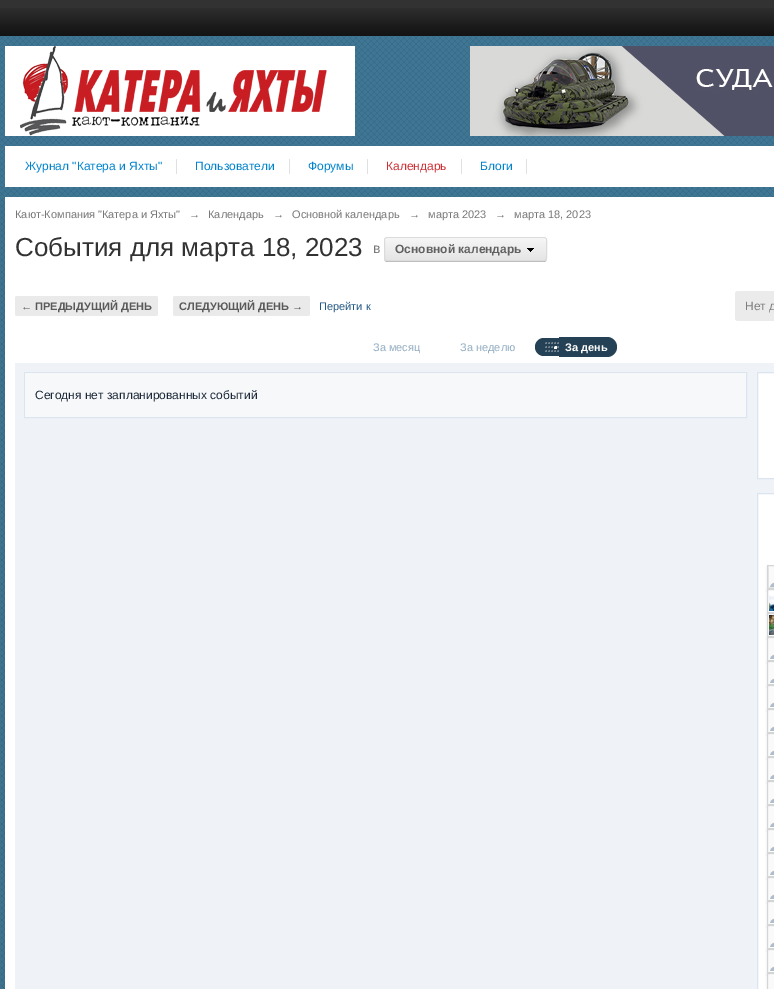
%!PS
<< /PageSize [774 989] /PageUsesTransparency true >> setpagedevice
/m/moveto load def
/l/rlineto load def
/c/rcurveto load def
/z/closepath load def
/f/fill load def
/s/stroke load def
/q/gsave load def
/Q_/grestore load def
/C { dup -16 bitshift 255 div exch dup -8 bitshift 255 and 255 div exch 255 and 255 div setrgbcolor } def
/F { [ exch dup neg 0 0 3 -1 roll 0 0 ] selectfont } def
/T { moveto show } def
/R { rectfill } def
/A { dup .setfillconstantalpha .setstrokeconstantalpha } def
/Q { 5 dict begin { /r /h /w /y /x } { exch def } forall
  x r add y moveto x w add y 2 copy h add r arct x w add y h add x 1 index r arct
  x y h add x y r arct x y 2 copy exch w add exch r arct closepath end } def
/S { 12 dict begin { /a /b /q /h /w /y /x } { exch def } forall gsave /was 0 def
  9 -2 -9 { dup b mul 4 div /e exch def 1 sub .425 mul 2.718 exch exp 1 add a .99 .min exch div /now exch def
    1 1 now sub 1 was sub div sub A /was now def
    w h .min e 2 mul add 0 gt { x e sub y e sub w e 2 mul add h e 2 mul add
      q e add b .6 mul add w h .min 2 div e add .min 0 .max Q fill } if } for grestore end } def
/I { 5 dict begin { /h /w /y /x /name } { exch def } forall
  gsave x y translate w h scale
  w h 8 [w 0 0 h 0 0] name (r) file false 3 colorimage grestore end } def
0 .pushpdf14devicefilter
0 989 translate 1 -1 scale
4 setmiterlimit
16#FFFFFF C
0 0 774 989 R
(1.rgb) 0 36 774 953 I
16#323232 C
0 0 774 8 R
(2.rgb) 0 8 774 28 I
16#FFFFFF C
5 46 350 90 R
(3.rgb) 20 46 307 90 I
(4.rgb) 470 46 304 90 I
5 146 769 41 R
16#E1E1E1 C
176 159 1 15 R
/LiberationSans-Regular 12 F
16#0083CB C
(Журнал "Катера и Яхты") 25 170 T
16#E1E1E1 C
289 159 1 15 R
16#0083CB C
(Пользователи) 195 170 T
16#E1E1E1 C
367 159 1 15 R
16#0083CB C
(Форумы) 308 170 T
16#E1E1E1 C
461 159 1 15 R
16#CC2F34 C
(Календарь) 386 170 T
16#E1E1E1 C
526 159 1 15 R
16#0083CB C
(Блоги) 480 170 T
16#000000 C
5 202 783 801 0 4.5 .1 S
16#FFFFFF C
5 197 769 792 R
/LiberationSans-Regular 11 F
16#777777 C
(Кают-Компания "Катера и Яхты") 15 218 T
(→) 189 218 T
(Календарь) 208 218 T
(→) 273 218 T
(Основной календарь) 292 218 T
(→) 409 218 T
(марта 2023) 428 218 T
(→) 495 218 T
(марта 18, 2023) 514 218 T
/LiberationSans-Regular 26 F
16#323232 C
(События для марта 18, 2023) 15 256 T
/LiberationSans-Regular 14 F
16#777777 C
(в) 373 253 T
16#B3B3B3 C
384 258 m 0 2 1 4 3 4 c 157 0 l 2 0 3 -2 3 -4 c 0 2 -1 3 -3 3 c -157 0 l -2 0 -3 -1 -3 -3 c z f
q
384 237 163 24 3 Q clip newpath
q 384 238 m 163 0 l 0 22 l -163 0 l z clip newpath
<< /ShadingType 2 /ColorSpace /DeviceRGB /Coords [385 238 385 260] /Extend [true true] /Function << /FunctionType 2 /Domain [0 1] /C0 [.965 .965 .965] /C1 [.898 .898 .898] /N 1 >> >> shfill Q_
Q_
16#FFFFFF C
387 239 m 157 0 l 1 0 2 1 2 2 c 0 -1 0 -3 -2 -3 c -157 0 l -2 0 -2 2 -2 3 c 0 -1 1 -2 2 -2 c z f
16#DBDBDB C
384.5 237.5 162 23 2.5 Q s
/LiberationSans-Bold 12 F
16#616161 C
(Основной календарь) 395 253 T
(5.rgb) 527 248 7 4 I
16#EAEAEA C
15 296 143 20 2 Q f
/LiberationSans-Bold 11 F
16#5A5A5A C
(← ПРЕДЫДУЩИЙ ДЕНЬ) 21 310 T
16#EAEAEA C
173 296 137 20 2 Q f
16#5A5A5A C
(СЛЕДУЮЩИЙ ДЕНЬ →) 179 310 T
/LiberationSans-Regular 11 F
16#225985 C
(Перейти к) 319 310 T
16#EBEBEB C
735 291 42 30 3 Q f
/LiberationSans-Regular 12 F
16#7F7F7F C
(Нет д) 745 310 T
/LiberationSans-Regular 11 F
16#91ACC2 C
(За месяц) 373 351 T
(За неделю) 460 351 T
16#244156 C
544 338 m 15 0 l 0 18 l -15 0 l -5 0 -9 -4 -9 -9 c 0 -5 4 -9 9 -9 c z f
(6.rgb) 545 342 14 10 I
559 337 m 48 0 l 5.5 0 10 4.5 10 10 c 0 5.5 -4.5 10 -10 10 c -48 0 l z f
/LiberationSans-Bold 11 F
16#FFFFFF C
(За день) 565 351 T
16#EFF3F7 C
15 363 759 626 R
16#DBE4EF C
24.5 372.5 722 45 rectstroke
16#F6F8FA C
25 373 721 44 R
/LiberationSans-Regular 12 F
16#1C2837 C
(Сегодня нет запланированных событий) 35 399 T
16#FFFFFF C
757.5 372.5 m 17 0 l 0 106 l -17 0 l z q f Q_
16#DBE4EF C
s
16#FFFFFF C
757.5 493.5 m 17 0 l 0 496 l -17 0 l z q f Q_
16#DBE4EF C
s
16#000000 C
767 567 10 24 0 1 .1 S
16#D5D5D5 C
767.5 565.5 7 23 rectstroke
(7.rgb) 769 567 5 20 I
16#000000 C
767 591 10 24 0 1 .1 S
16#FFFFFF C
767.5 589.5 m 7 0 l 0 23 l -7 0 l z q f Q_
16#D5D5D5 C
s
(8.rgb) 769 595 5 16 I
16#000000 C
767 615 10 24 0 1 .1 S
16#FFFFFF C
767.5 613.5 m 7 0 l 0 23 l -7 0 l z q f Q_
16#D5D5D5 C
s
(9.rgb) 769 615 5 20 I
16#000000 C
767 639 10 24 0 1 .1 S
16#FFFFFF C
767.5 637.5 m 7 0 l 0 23 l -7 0 l z q f Q_
16#D5D5D5 C
s
(10.rgb) 769 639 5 20 I
16#000000 C
767 663 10 24 0 1 .1 S
16#FFFFFF C
767.5 661.5 m 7 0 l 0 23 l -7 0 l z q f Q_
16#D5D5D5 C
s
(10.rgb) 769 663 5 20 I
16#000000 C
767 687 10 24 0 1 .1 S
16#FFFFFF C
767.5 685.5 m 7 0 l 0 23 l -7 0 l z q f Q_
16#D5D5D5 C
s
(10.rgb) 769 687 5 20 I
16#000000 C
767 711 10 24 0 1 .1 S
16#FFFFFF C
767.5 709.5 m 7 0 l 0 23 l -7 0 l z q f Q_
16#D5D5D5 C
s
(10.rgb) 769 711 5 20 I
16#000000 C
767 735 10 24 0 1 .1 S
16#FFFFFF C
767.5 733.5 m 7 0 l 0 23 l -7 0 l z q f Q_
16#D5D5D5 C
s
(10.rgb) 769 735 5 20 I
16#000000 C
767 759 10 24 0 1 .1 S
16#FFFFFF C
767.5 757.5 m 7 0 l 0 23 l -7 0 l z q f Q_
16#D5D5D5 C
s
(10.rgb) 769 759 5 20 I
16#000000 C
767 783 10 24 0 1 .1 S
16#FFFFFF C
767.5 781.5 m 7 0 l 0 23 l -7 0 l z q f Q_
16#D5D5D5 C
s
(10.rgb) 769 783 5 20 I
16#000000 C
767 807 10 24 0 1 .1 S
16#FFFFFF C
767.5 805.5 m 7 0 l 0 23 l -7 0 l z q f Q_
16#D5D5D5 C
s
(10.rgb) 769 807 5 20 I
16#000000 C
767 831 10 24 0 1 .1 S
16#FFFFFF C
767.5 829.5 m 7 0 l 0 23 l -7 0 l z q f Q_
16#D5D5D5 C
s
(10.rgb) 769 831 5 20 I
16#000000 C
767 855 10 24 0 1 .1 S
16#FFFFFF C
767.5 853.5 m 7 0 l 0 23 l -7 0 l z q f Q_
16#D5D5D5 C
s
(10.rgb) 769 855 5 20 I
16#000000 C
767 879 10 24 0 1 .1 S
16#FFFFFF C
767.5 877.5 m 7 0 l 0 23 l -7 0 l z q f Q_
16#D5D5D5 C
s
(10.rgb) 769 879 5 20 I
16#000000 C
767 903 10 24 0 1 .1 S
16#FFFFFF C
767.5 901.5 m 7 0 l 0 23 l -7 0 l z q f Q_
16#D5D5D5 C
s
(10.rgb) 769 903 5 20 I
16#000000 C
767 927 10 24 0 1 .1 S
16#FFFFFF C
767.5 925.5 m 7 0 l 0 23 l -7 0 l z q f Q_
16#D5D5D5 C
s
(10.rgb) 769 927 5 20 I
16#000000 C
767 951 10 24 0 1 .1 S
16#FFFFFF C
767.5 949.5 m 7 0 l 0 23 l -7 0 l z q f Q_
16#D5D5D5 C
s
(10.rgb) 769 951 5 20 I
16#000000 C
767 975 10 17 0 1 .1 S
16#FFFFFF C
767.5 973.5 m 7 0 l 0 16 l -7 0 l z q f Q_
16#D5D5D5 C
s
16#FAFAFA C
769 975 5 14 R
.poppdf14devicefilter showpage
